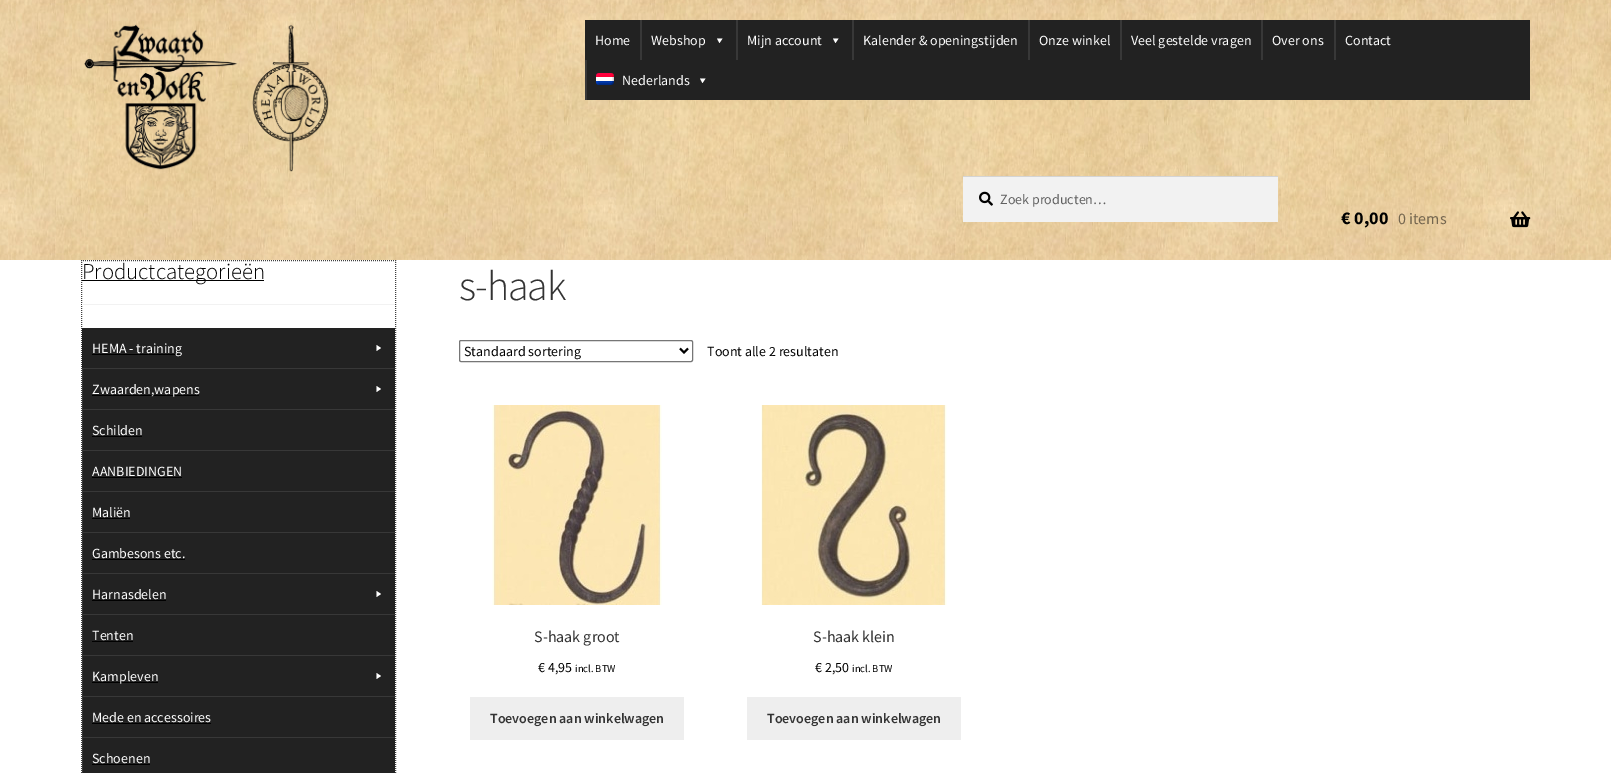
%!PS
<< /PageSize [1611 773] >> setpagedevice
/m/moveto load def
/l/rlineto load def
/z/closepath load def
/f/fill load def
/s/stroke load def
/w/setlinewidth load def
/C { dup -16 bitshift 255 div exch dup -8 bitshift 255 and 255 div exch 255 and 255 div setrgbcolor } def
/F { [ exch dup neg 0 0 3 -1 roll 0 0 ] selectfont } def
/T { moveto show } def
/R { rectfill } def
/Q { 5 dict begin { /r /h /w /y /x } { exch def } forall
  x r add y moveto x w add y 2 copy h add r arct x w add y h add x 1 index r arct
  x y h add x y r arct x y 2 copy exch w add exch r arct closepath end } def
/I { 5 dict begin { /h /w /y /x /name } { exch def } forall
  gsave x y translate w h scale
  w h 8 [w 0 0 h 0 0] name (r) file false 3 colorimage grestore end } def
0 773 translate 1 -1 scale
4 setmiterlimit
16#FFFFFF C
0 0 1611 773 R
(1.rgb) 0 0 1611 260 I
(2.rgb) 84 24 245 148 I
16#222222 C
585 20 945 80 R
/SourceSansPro-Regular 14 F
16#FFFFFF C
(Home) 595 45 T
16#383838 C
640 20 2 40 R
16#FFFFFF C
(Webshop) 651 45 T
722.5 38.5 m -3 4.5 l -2.5 -4.5 l z f
16#383838 C
736 20 2 40 R
16#FFFFFF C
(Mijn account) 747 45 T
838.5 38.5 m -3 4.5 l -2.5 -4.5 l z f
16#383838 C
852 20 2 40 R
16#FFFFFF C
(Kalender & openingstijden) 863 45 T
16#383838 C
1028 20 2 40 R
16#FFFFFF C
(Onze winkel) 1039 45 T
16#383838 C
1120 20 2 40 R
16#FFFFFF C
(Veel gestelde vragen) 1131 45 T
16#383838 C
1261 20 2 40 R
16#FFFFFF C
(Over ons) 1272 45 T
16#383838 C
1334 20 2 40 R
16#FFFFFF C
(Contact) 1345 45 T
16#383838 C
585 60 2 40 R
(3.rgb) 596 73 18 12 I
16#FFFFFF C
(Nederlands) 622 85 T
705.5 78.5 m -3 4.5 l -2.5 -4.5 l z f
16#F2F2F2 C
963 177 315 45 R
(4.rgb) 979 191 14 15 I
16#D4D4D4 C
963 176 315 1 R
16#616161 C
(Zoek producten…) 1000 204 T
/SourceSansPro-Bold 18 F
16#000000 C
(€ 0,00) 1341 224 T
/SourceSansPro-Regular 16 F
16#74664F C
(0 items) 1398 224 T
(5.rgb) 1510 211 21 17 I
16#3F3F3F C
[1 1] 0 setdash
81 260.5 m 315 0 l s
395.5 260 m 0 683 l s
81.5 260 m 0 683 l s
16#F2F2F2 C
82 304 313 1 R
16#000000 C
82 280 182 1 R
/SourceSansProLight-Light 22.75 F
(Productcategorieën) 82 279 T
16#222222 C
82 328 313 445 R
16#000000 C
92 354 90 1 R
/SourceSansPro-Regular 14 F
16#FFFFFF C
(HEMA - training) 92 353 T
376.5 345 m 4.5 3 l -4.5 3 l z f
16#383838 C
82 369 1 40 R
82 368 313 1 R
16#000000 C
92 395 107 1 R
16#FFFFFF C
(Zwaarden,wapens) 92 394 T
376.5 386 m 4.5 3 l -4.5 3 l z f
16#383838 C
82 410 1 40 R
82 409 313 1 R
16#FFFFFF C
(Schilden) 92 435 T
16#000000 C
92 436 50 1 R
16#383838 C
82 451 1 40 R
82 450 313 1 R
16#FFFFFF C
(AANBIEDINGEN) 92 476 T
16#000000 C
92 477 90 1 R
16#383838 C
82 492 1 40 R
82 491 313 1 R
16#FFFFFF C
(Maliën) 92 517 T
16#000000 C
92 518 38 1 R
16#383838 C
82 533 1 40 R
82 532 313 1 R
16#FFFFFF C
(Gambesons etc.) 92 558 T
16#000000 C
92 559 93 1 R
16#383838 C
82 574 1 40 R
82 573 313 1 R
16#FFFFFF C
(Harnasdelen) 92 599 T
16#000000 C
92 600 74 1 R
16#FFFFFF C
376.5 591 m 4.5 3 l -4.5 3 l z f
16#383838 C
82 615 1 40 R
82 614 313 1 R
16#FFFFFF C
(Tenten) 92 640 T
16#000000 C
92 641 41 1 R
16#383838 C
82 656 1 40 R
82 655 313 1 R
16#000000 C
92 682 66 1 R
16#FFFFFF C
(Kampleven) 92 681 T
376.5 673 m 4.5 3 l -4.5 3 l z f
16#383838 C
82 697 1 40 R
82 696 313 1 R
16#FFFFFF C
(Mede en accessoires) 92 722 T
16#000000 C
92 723 119 1 R
16#383838 C
82 738 1 35 R
82 737 313 1 R
16#FFFFFF C
(Schoenen) 92 763 T
16#000000 C
92 764 58 1 R
/SourceSansProLight-Light 42 F
16#333333 C
459 300 m -1 0 (s-haak) ashow
16#767676 C
[] 0 setdash
459.5 340.5 233 21 1.5 Q s
16#000000 C
2 w
680 348.5 m 4 4 l 4 -4 l s
/SourceSansPro-Regular 14 F
(Standaard sortering) 464 356 T
(Toont alle 2 resultaten) 707 356 T
(6.rgb) 492 405 170 200 I
/SourceSansPro-Regular 16 F
16#333333 C
(S-haak groot) 534 642 T
/SourceSansPro-Regular 14 F
16#000000 C
(€ 4,95) 538 672 T
/SourceSansPro-Regular 10.5 F
(incl. BTW) 575 672 T
16#EEEEEE C
470 697 214 43 R
/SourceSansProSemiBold-SemiBold 14 F
16#333333 C
(Toevoegen aan winkelwagen) 490 723 T
(7.rgb) 761 405 186 200 I
/SourceSansPro-Regular 16 F
(S-haak klein) 813 642 T
/SourceSansPro-Regular 14 F
16#000000 C
(€ 2,50) 815 672 T
/SourceSansPro-Regular 10.5 F
(incl. BTW) 852 672 T
16#EEEEEE C
747 697 214 43 R
/SourceSansProSemiBold-SemiBold 14 F
16#333333 C
(Toevoegen aan winkelwagen) 767 723 T
showpage
